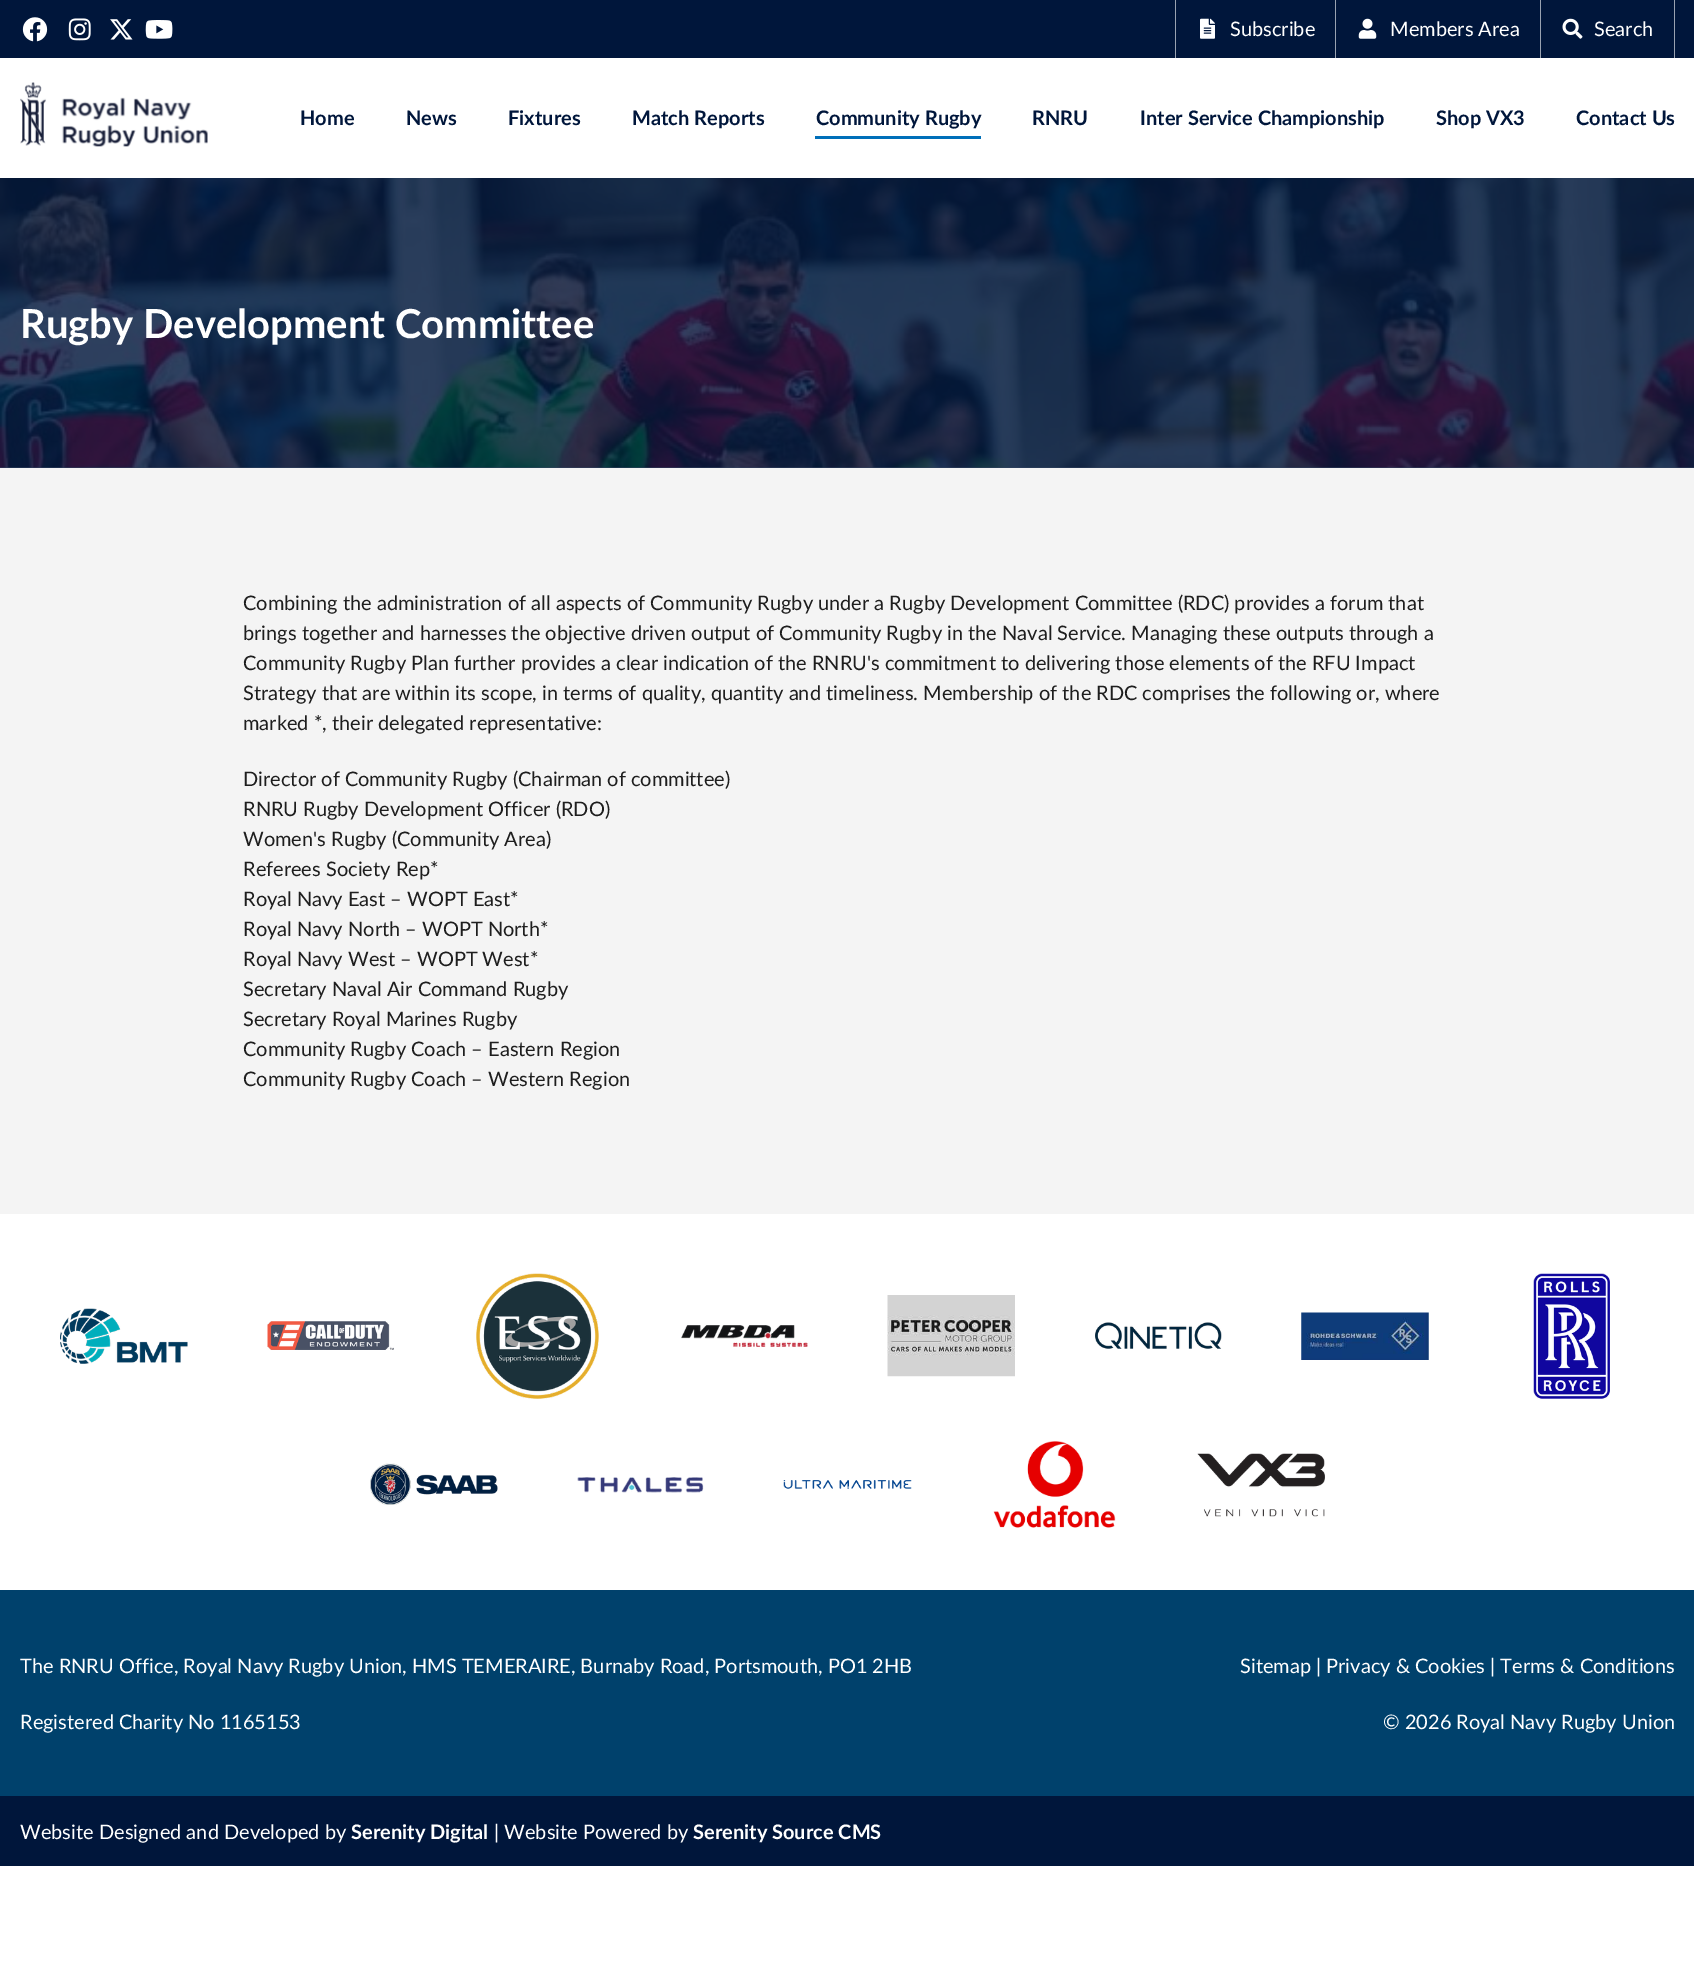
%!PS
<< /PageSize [1694 1980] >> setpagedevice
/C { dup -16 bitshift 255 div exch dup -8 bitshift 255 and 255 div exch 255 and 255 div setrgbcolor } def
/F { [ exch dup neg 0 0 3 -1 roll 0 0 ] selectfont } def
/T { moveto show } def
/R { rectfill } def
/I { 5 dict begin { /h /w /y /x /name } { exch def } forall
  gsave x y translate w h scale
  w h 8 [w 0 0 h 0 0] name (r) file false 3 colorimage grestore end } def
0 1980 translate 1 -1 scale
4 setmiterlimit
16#FFFFFF C
0 0 1694 1980 R
16#334562 C
0 467 1694 1 R
16#00163B C
0 0 1694 58 R
(1.rgb) 22 17 26 25 I
(2.rgb) 68 18 23 23 I
(3.rgb) 110 19 23 21 I
(4.rgb) 145 20 28 19 I
16#99A2B1 C
1175 0 1 58 R
(5.rgb) 1200 18 15 21 I
/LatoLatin-Regular 20 F
16#FFFFFF C
(Subscribe) 1230 36 T
16#99A2B1 C
1335 0 1 58 R
(6.rgb) 1358 18 19 21 I
16#FFFFFF C
(Members Area) 1390 36 T
16#99A2B1 C
1674 0 1 58 R
1540 0 1 58 R
(7.rgb) 1562 18 21 21 I
16#FFFFFF C
(Search) 1594 36 T
(8.rgb) 20 82 188 65 I
/LatoLatin-Bold 20 F
16#00163B C
(Home) 300 125 T
(News) 406 125 T
(Fixtures) 508 125 T
(Match Reports) 632 125 T
(Community Rugby) 816 125 T
16#006FB9 C
815 136 166 3 R
16#00163B C
(RNRU) 1032 125 T
(Inter Service Championship) 1140 125 T
(Shop VX3) 1436 125 T
(Contact Us) 1576 125 T
(9.rgb) 0 178 1694 290 I
/LatoLatin-Bold 40 F
16#FFFFFF C
(Rugby Development Committee) 20 338 T
16#F4F4F4 C
0 468 1694 746 R
/LatoLatin-Regular 20 F
16#1E1E1E C
(Combining the administration of all aspects of Community Rugby under a Rugby Development Committee \(RDC\) provides a forum that) 243 610 T
(brings together and harnesses the objective driven output of Community Rugby in the Naval Service. Managing these outputs through a) 243 640 T
(Community Rugby Plan further provides a clear indication of the RNRU's commitment to delivering those elements of the RFU Impact) 243 670 T
(Strategy that are within its scope, in terms of quality, quantity and timeliness. Membership of the RDC comprises the following or, where) 243 700 T
(marked *, their delegated representative:) 243 730 T
(Director of Community Rugby \(Chairman of committee\)) 243 786 T
(RNRU Rugby Development Officer \(RDO\)) 243 816 T
(Women's Rugby \(Community Area\)) 243 846 T
(Referees Society Rep*) 243 876 T
(Royal Navy East – WOPT East*) 243 906 T
(Royal Navy North – WOPT North*) 243 936 T
(Royal Navy West – WOPT West*) 243 966 T
(Secretary Naval Air Command Rugby) 243 996 T
(Secretary Royal Marines Rugby) 243 1026 T
(Community Rugby Coach – Eastern Region) 243 1056 T
(Community Rugby Coach – Western Region) 243 1086 T
(10.rgb) 60 1308 128 56 I
(11.rgb) 267 1321 127 29 I
(12.rgb) 476 1273 123 126 I
(13.rgb) 681 1325 127 22 I
(14.rgb) 887 1295 128 82 I
(15.rgb) 1095 1322 127 27 I
(16.rgb) 1301 1312 128 48 I
(17.rgb) 1533 1273 77 126 I
(18.rgb) 370 1463 128 42 I
(19.rgb) 577 1477 127 16 I
(20.rgb) 783 1480 129 9 I
(21.rgb) 993 1441 123 87 I
(22.rgb) 1197 1453 128 64 I
16#00416C C
0 1590 1694 206 R
16#FFFFFF C
(The RNRU Office, Royal Navy Rugby Union, HMS TEMERAIRE, Burnaby Road, Portsmouth, PO1 2HB) 20 1673 T
(Registered Charity No 1165153) 20 1729 T
(Sitemap | Privacy & Cookies | Terms & Conditions) 1240 1673 T
(© 2026 Royal Navy Rugby Union) 1383 1729 T
16#00163B C
0 1796 1694 70 R
16#FFFFFF C
(Website Designed and Developed by) 20 1839 T
/LatoLatin-Bold 20 F
(Serenity Digital) 351 1839 T
/LatoLatin-Regular 20 F
(| Website Powered by) 494 1839 T
/LatoLatin-Bold 20 F
(Serenity Source CMS) 693 1839 T
showpage
